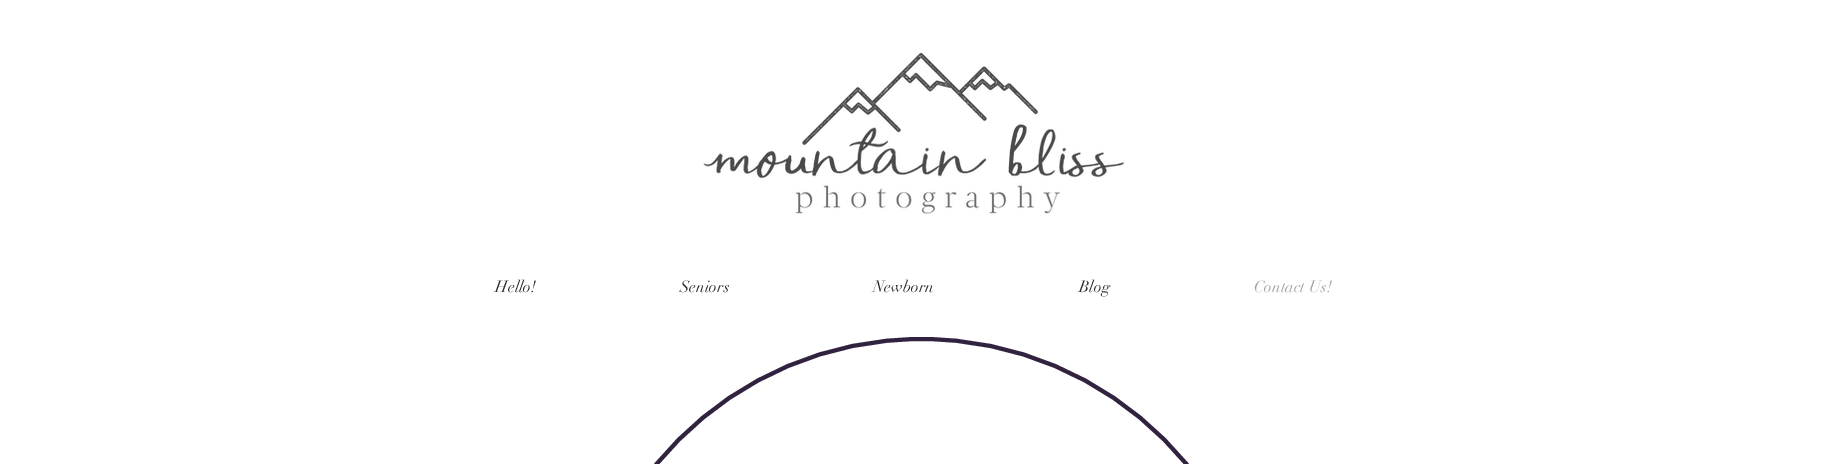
%!PS
<< /PageSize [1827 464] >> setpagedevice
/m/moveto load def
/c/rcurveto load def
/z/closepath load def
/s/stroke load def
/w/setlinewidth load def
/C { dup -16 bitshift 255 div exch dup -8 bitshift 255 and 255 div exch 255 and 255 div setrgbcolor } def
/F { [ exch dup neg 0 0 3 -1 roll 0 0 ] selectfont } def
/T { moveto show } def
/R { rectfill } def
/I { 5 dict begin { /h /w /y /x /name } { exch def } forall
  gsave x y translate w h scale
  w h 8 [w 0 0 h 0 0] name (r) file false 3 colorimage grestore end } def
0 464 translate 1 -1 scale
4 setmiterlimit
16#FFFFFF C
0 0 1827 464 R
(1.rgb) 703 52 422 163 I
/didot-Regular 16 F
16#292929 C
(Hello!) 495 292 T
(Seniors) 680 292 T
(Newborn) 873 292 T
(Blog) 1079 292 T
16#A0A09F C
(Contact Us!) 1254 292 T
16#312340 C
4 w
1265 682.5 m 0 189.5 -154 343.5 -343.5 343.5 c -189.5 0 -343.5 -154 -343.5 -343.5 c 0 -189.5 154 -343.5 343.5 -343.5 c 189.5 0 343.5 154 343.5 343.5 c z s
showpage
